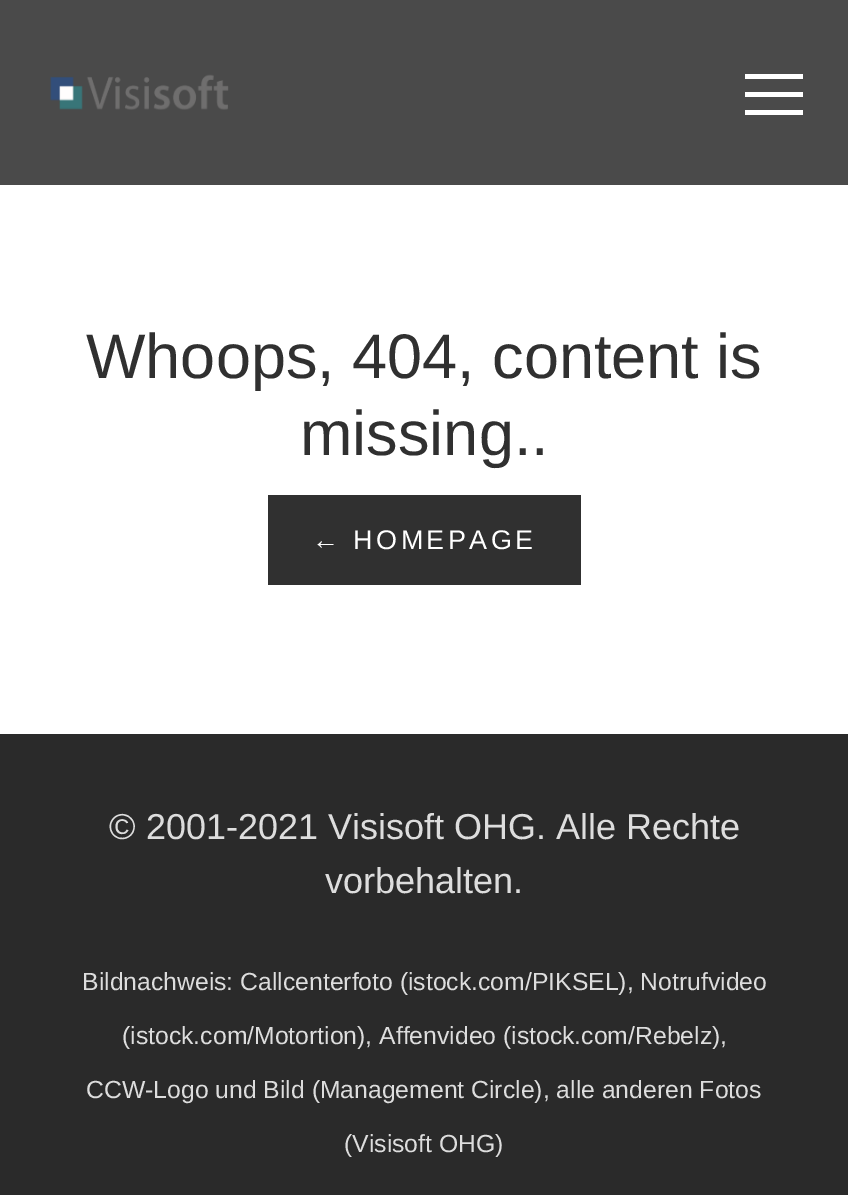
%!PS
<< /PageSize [848 1195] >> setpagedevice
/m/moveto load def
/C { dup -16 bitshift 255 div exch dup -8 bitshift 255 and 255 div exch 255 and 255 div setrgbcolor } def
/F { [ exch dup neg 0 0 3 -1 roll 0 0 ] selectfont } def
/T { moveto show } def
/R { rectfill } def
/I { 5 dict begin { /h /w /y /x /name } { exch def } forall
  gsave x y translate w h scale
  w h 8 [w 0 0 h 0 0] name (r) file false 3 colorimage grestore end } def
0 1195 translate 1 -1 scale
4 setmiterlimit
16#FFFFFF C
0 0 848 1195 R
16#4A4A4A C
0 0 848 185 R
(1.rgb) 50 74 179 36 I
16#FFFFFF C
745 92 58 5 R
745 74 58 5 R
745 110 58 5 R
/LiberationSans-Regular 63 F
16#303030 C
(Whoops, 404, content is) 86 378 T
(missing..) 300 455 T
268 495 313 90 R
/LiberationSans-Regular 27 F
16#FFFFFF C
312 549 m 3.4 0 (← HOMEPAGE) ashow
16#2A2A2A C
0 734 848 461 R
/LiberationSans-Regular 36 F
16#DDDDDD C
(© 2001-2021 Visisoft OHG. Alle Rechte) 109 839 T
(vorbehalten.) 325 893 T
/LiberationSans-Regular 24.75 F
(Bildnachweis: Callcenterfoto \(istock.com/PIKSEL\), Notrufvideo) 82 990 T
(\(istock.com/Motortion\), Affenvideo \(istock.com/Rebelz\),) 122 1044 T
(CCW-Logo und Bild \(Management Circle\), alle anderen Fotos) 86 1098 T
(\(Visisoft OHG\)) 344 1152 T
showpage
